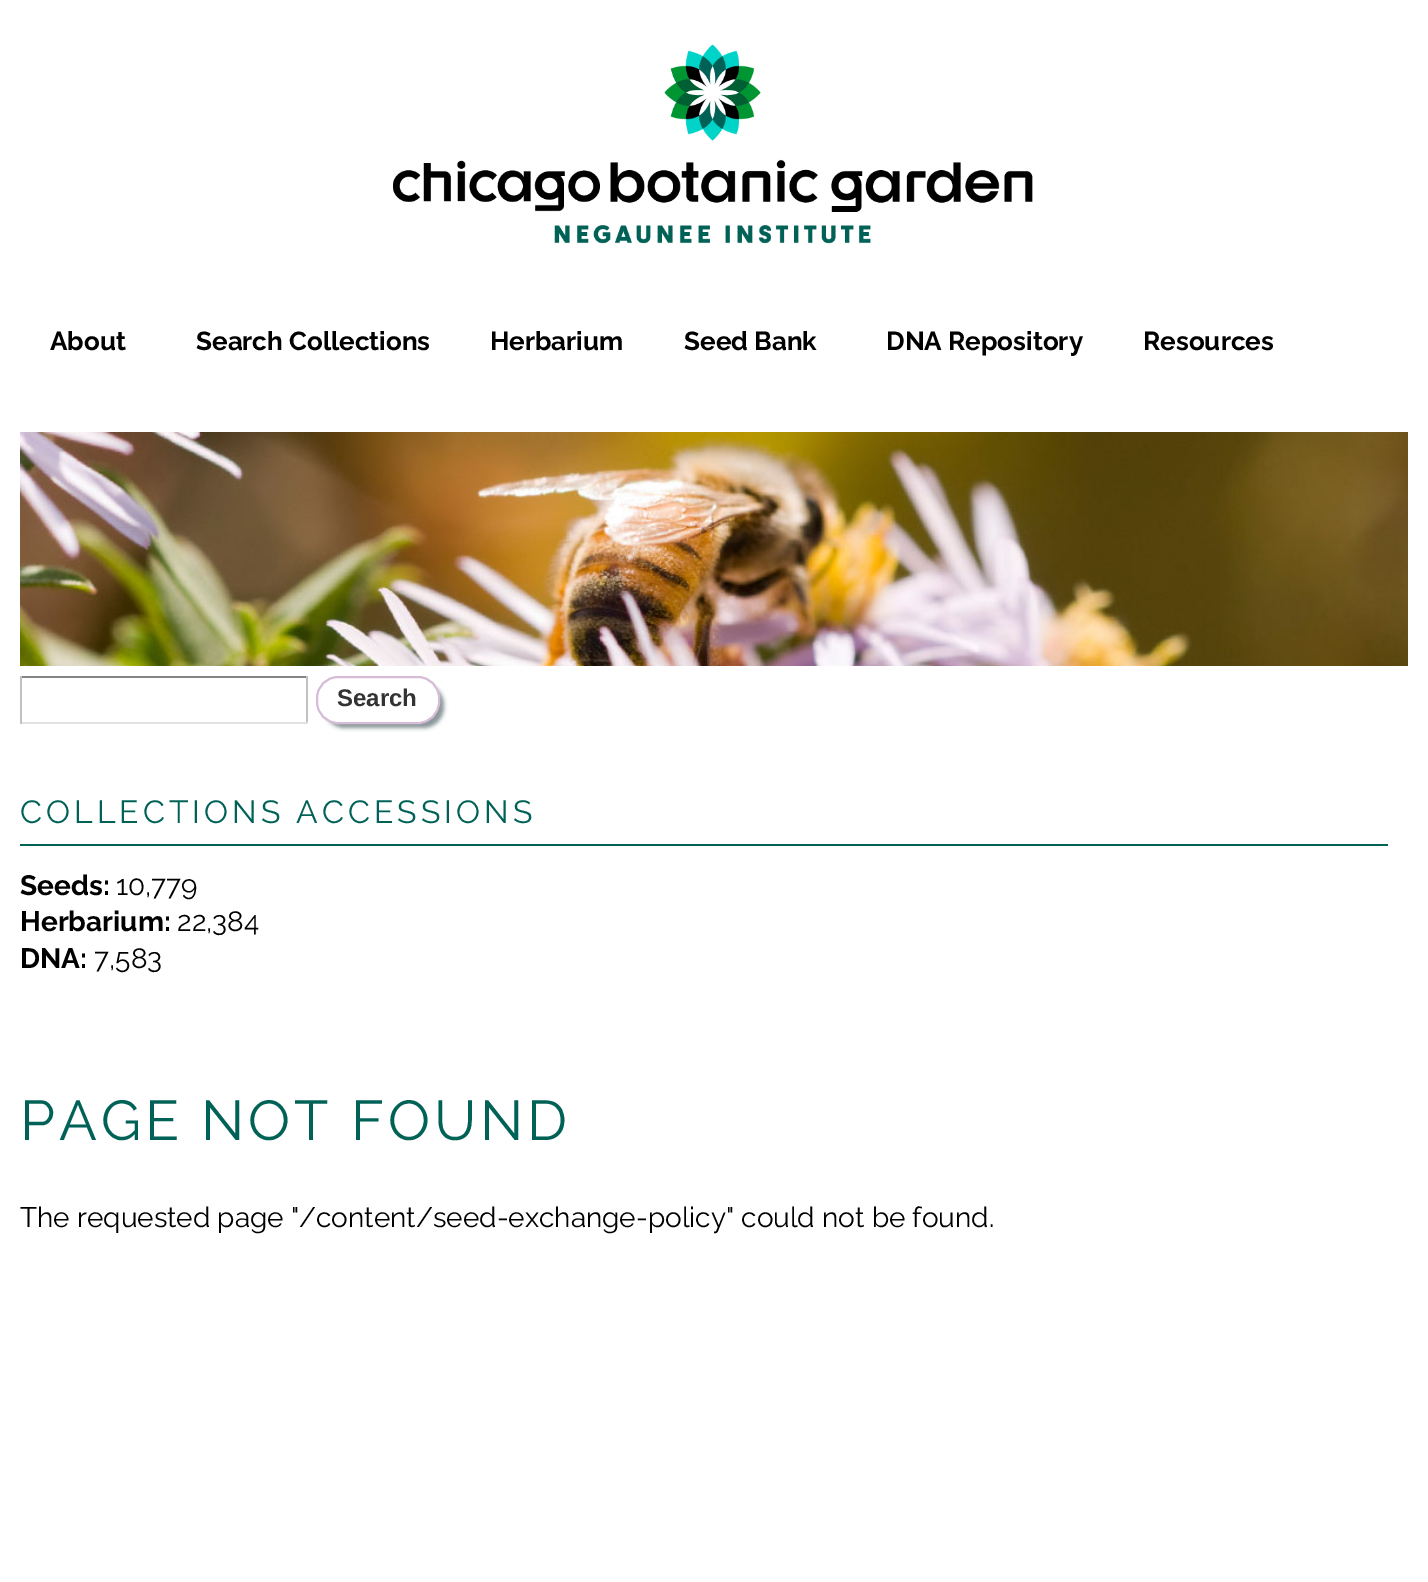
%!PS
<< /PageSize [1428 1582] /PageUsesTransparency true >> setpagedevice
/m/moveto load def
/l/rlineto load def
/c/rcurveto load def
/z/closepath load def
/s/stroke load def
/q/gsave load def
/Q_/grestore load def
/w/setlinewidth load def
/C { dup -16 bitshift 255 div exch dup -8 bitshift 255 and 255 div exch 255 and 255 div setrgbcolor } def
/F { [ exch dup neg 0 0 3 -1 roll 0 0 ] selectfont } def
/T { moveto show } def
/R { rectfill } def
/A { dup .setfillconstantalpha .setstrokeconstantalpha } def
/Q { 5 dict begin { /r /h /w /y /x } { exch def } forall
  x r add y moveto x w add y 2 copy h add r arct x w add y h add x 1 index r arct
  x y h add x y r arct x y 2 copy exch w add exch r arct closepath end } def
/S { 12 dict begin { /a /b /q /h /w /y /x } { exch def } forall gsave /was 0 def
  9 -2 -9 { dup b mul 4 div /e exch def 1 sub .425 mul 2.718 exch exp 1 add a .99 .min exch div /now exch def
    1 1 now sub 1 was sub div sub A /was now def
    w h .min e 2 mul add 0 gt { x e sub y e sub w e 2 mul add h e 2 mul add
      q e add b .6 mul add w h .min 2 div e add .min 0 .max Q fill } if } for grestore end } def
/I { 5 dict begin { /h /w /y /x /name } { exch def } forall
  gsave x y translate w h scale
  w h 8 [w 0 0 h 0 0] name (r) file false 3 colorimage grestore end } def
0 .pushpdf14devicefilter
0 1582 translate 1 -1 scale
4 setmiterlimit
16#FFFFFF C
0 0 1428 1582 R
(1.rgb) 393 44 640 200 I
/Raleway-Bold 26 F
16#000000 C
(About) 50 350 T
(Search Collections) 196 350 T
(Herbarium) 490 350 T
(Seed Bank) 684 350 T
(DNA Repository) 886 350 T
(Resources) 1143 350 T
(2.rgb) 20 432 1388 234 I
16#848484 C
20 676 288 2 R
16#C1C1C1 C
306 676 2 48 R
16#E1E1E1 C
20 722 288 2 R
16#C1C1C1 C
20 676 2 48 R
q
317 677 m 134 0 l 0 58 l -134 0 l z 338 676 m 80 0 l 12 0 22 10 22 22 c 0 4 l 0 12 -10 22 -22 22 c -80 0 l -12 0 -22 -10 -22 -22 c 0 -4 l 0 -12 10 -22 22 -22 c z eoclip newpath
16#899599 C
324 684 120 44 20 2 1 S
Q_
16#D6BCD6 C
2 w
317 677 122 46 21 Q s
/LiberationSans-Bold 24 F
16#333333 C
(Search) 337 706 T
16#006156 C
20 844 1368 2 R
/Raleway-Regular 32 F
20 823 m 4 0 (COLLECTIONS ACCESSIONS) ashow
/Raleway-Bold 28 F
16#000000 C
(Seeds:) 20 895 T
/Raleway-Regular 28 F
(10,779) 116 895 T
/Raleway-Bold 28 F
(Herbarium:) 20 931 T
/Raleway-Regular 28 F
(22,384) 177 931 T
/Raleway-Bold 28 F
(DNA:) 20 968 T
/Raleway-Regular 28 F
(7,583) 94 968 T
/Raleway-Regular 56 F
16#006156 C
20 1140 m 4 0 (PAGE NOT FOUND) ashow
/Raleway-Regular 28 F
16#000000 C
(The requested page "/content/seed-exchange-policy" could not be found.) 20 1227 T
.poppdf14devicefilter showpage
